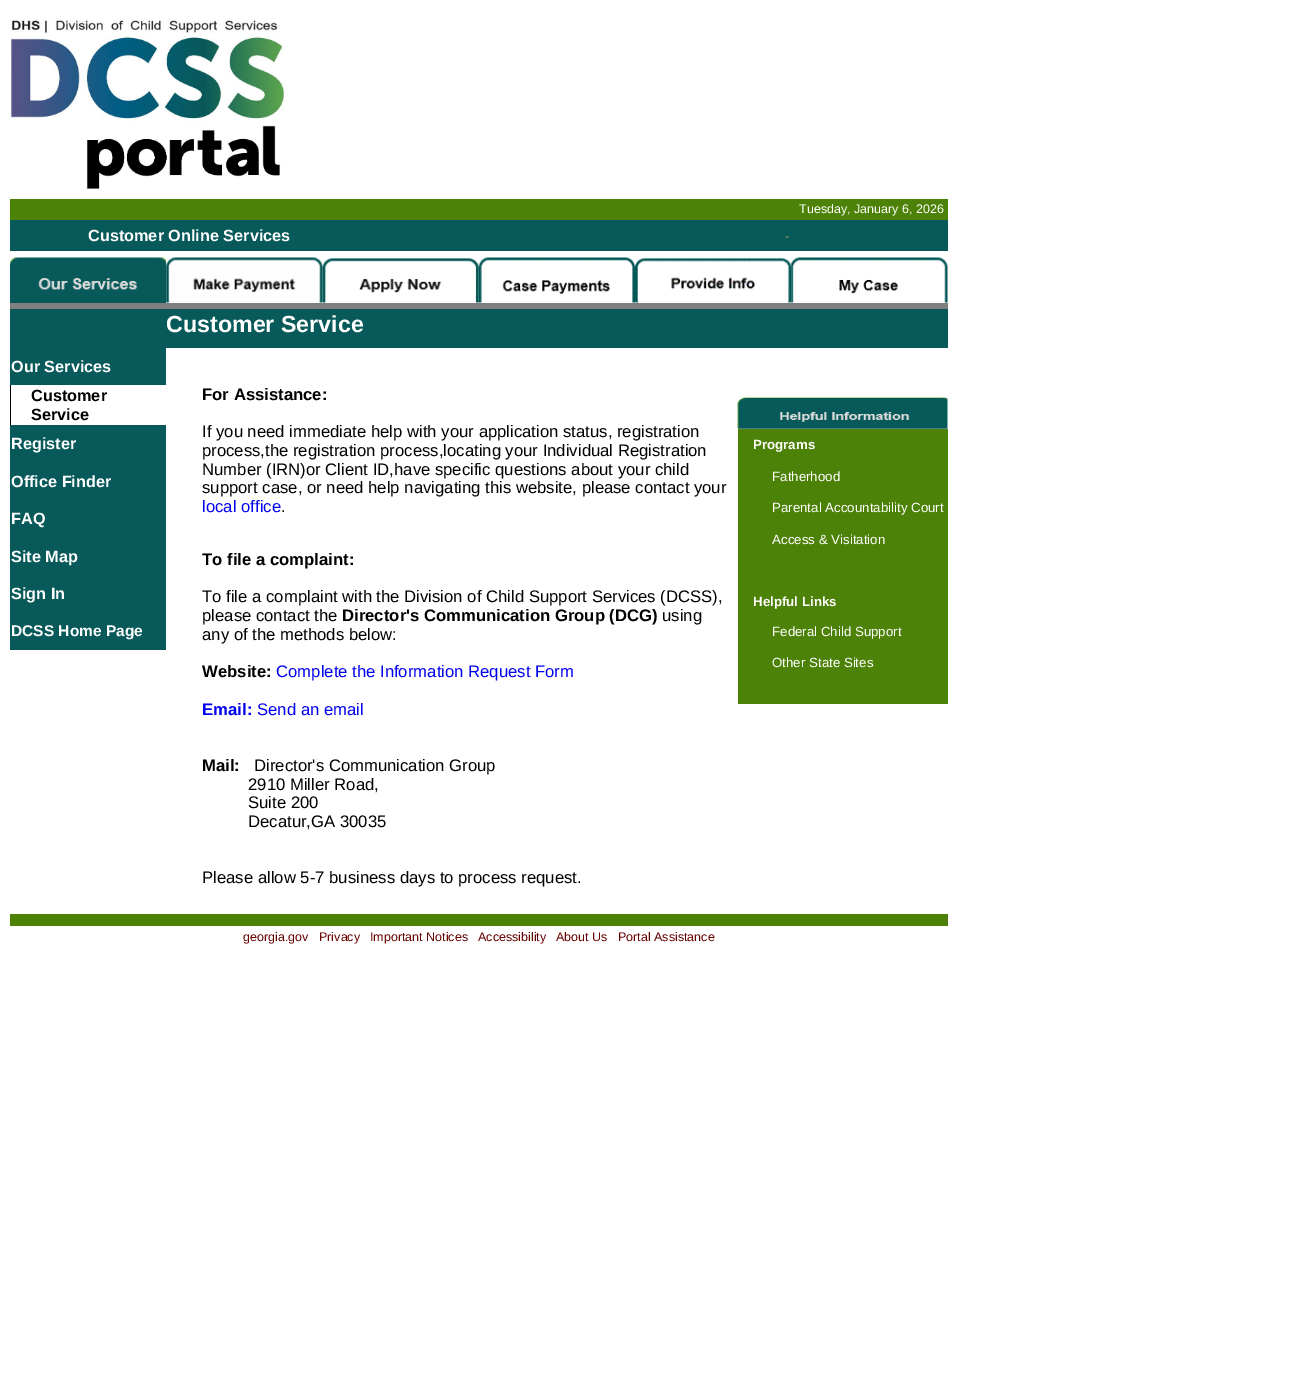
%!PS
<< /PageSize [1292 1379] >> setpagedevice
/C { dup -16 bitshift 255 div exch dup -8 bitshift 255 and 255 div exch 255 and 255 div setrgbcolor } def
/F { [ exch dup neg 0 0 3 -1 roll 0 0 ] selectfont } def
/T { moveto show } def
/R { rectfill } def
/I { 5 dict begin { /h /w /y /x /name } { exch def } forall
  gsave x y translate w h scale
  w h 8 [w 0 0 h 0 0] name (r) file false 3 colorimage grestore end } def
0 1379 translate 1 -1 scale
4 setmiterlimit
16#FFFFFF C
0 0 1292 1379 R
(1.rgb) 10 20 275 170 I
16#4D8208 C
10 199 938 21 R
/LiberationSans-Regular 12.5 F
16#FFFFFF C
(Tuesday, January 6, 2026) 799 213 T
16#085959 C
10 220 938 31 R
/LiberationSans-Bold 16.25 F
16#FFFFFF C
(Customer Online Services) 88 241 T
/LiberationSerif-Bold 12.5 F
16#999966 C
(-) 785 240 T
16#085959 C
10 302 156 1 R
(2.rgb) 10 257 157 46 I
(3.rgb) 166 257 157 46 I
(4.rgb) 322 257 157 46 I
(5.rgb) 478 257 157 46 I
(6.rgb) 635 257 157 46 I
(7.rgb) 791 257 157 46 I
10 309 938 39 R
16#808080 C
10 303 938 6 R
/LiberationSans-Bold 23.25 F
16#FFFFFF C
(Customer Service) 166 332 T
16#085959 C
10 348 156 37 R
/LiberationSans-Bold 16.25 F
16#FFFFFF C
(Our Services) 11 372 T
16#000000 C
10 385 1 40 R
(Customer) 31 401 T
(Service) 31 420 T
16#085959 C
10 425 156 225 R
16#FFFFFF C
(Register) 11 449 T
(Office Finder) 11 487 T
(FAQ) 11 524 T
(Site Map) 11 562 T
(Sign In) 11 599 T
/LiberationSans-Bold 15.5 F
(DCSS Home Page) 11 636 T
/LiberationSans-Bold 16.7 F
16#000000 C
(For Assistance:) 202 400 T
/LiberationSans-Regular 16.7 F
(If you need immediate help with your application status, registration) 202 437 T
(process,the registration process,locating your Individual Registration) 202 456 T
(Number \(IRN\)or Client ID,have specific questions about your child) 202 475 T
(support case, or need help navigating this website, please contact your) 202 493 T
16#0000EE C
(local office) 202 512 T
16#000000 C
(.) 281 512 T
/LiberationSans-Bold 16.7 F
(To file a complaint:) 202 565 T
/LiberationSans-Regular 16.7 F
(To file a complaint with the Division of Child Support Services \(DCSS\),) 202 602 T
(please contact the) 202 621 T
/LiberationSans-Bold 16.7 F
(Director's Communication Group \(DCG\)) 342 621 T
/LiberationSans-Regular 16.7 F
(using) 662 621 T
(any of the methods below:) 202 640 T
/LiberationSans-Bold 16.7 F
(Website:) 202 677 T
/LiberationSans-Regular 16.7 F
16#0000EE C
(Complete the Information Request Form) 276 677 T
/LiberationSans-Bold 16.7 F
(Email:) 202 715 T
/LiberationSans-Regular 16.7 F
(Send an email) 257 715 T
/LiberationSans-Bold 16.7 F
16#000000 C
(Mail:) 202 771 T
/LiberationSans-Regular 16.7 F
(Director's Communication Group) 254 771 T
(2910 Miller Road,) 248 790 T
(Suite 200) 248 808 T
(Decatur,GA 30035) 248 827 T
(Please allow 5-7 business days to process request.) 202 883 T
(8.rgb) 737 397 211 32 I
16#4D8208 C
738 429 210 275 R
/LiberationSans-Bold 13.3 F
16#FFFFFF C
(Programs) 753 449 T
/LiberationSans-Regular 13.3 F
(Fatherhood) 772 481 T
(Parental Accountability Court) 772 512 T
(Access & Visitation) 772 544 T
/LiberationSans-Bold 13.3 F
(Helpful Links) 753 606 T
/LiberationSans-Regular 13.3 F
(Federal Child Support) 772 636 T
(Other State Sites) 772 667 T
16#4D8208 C
10 914 938 12 R
/LiberationSans-Regular 12.5 F
16#660000 C
(georgia.gov) 243 941 T
(Privacy) 319 941 T
(Important Notices) 370 941 T
(Accessibility) 478 941 T
(About Us) 556 941 T
(Portal Assistance) 618 941 T
showpage
